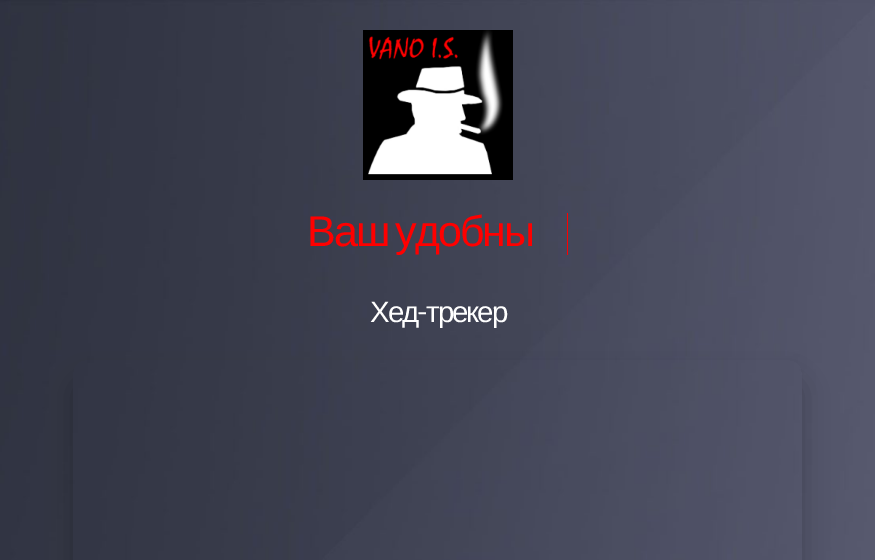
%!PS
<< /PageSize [875 560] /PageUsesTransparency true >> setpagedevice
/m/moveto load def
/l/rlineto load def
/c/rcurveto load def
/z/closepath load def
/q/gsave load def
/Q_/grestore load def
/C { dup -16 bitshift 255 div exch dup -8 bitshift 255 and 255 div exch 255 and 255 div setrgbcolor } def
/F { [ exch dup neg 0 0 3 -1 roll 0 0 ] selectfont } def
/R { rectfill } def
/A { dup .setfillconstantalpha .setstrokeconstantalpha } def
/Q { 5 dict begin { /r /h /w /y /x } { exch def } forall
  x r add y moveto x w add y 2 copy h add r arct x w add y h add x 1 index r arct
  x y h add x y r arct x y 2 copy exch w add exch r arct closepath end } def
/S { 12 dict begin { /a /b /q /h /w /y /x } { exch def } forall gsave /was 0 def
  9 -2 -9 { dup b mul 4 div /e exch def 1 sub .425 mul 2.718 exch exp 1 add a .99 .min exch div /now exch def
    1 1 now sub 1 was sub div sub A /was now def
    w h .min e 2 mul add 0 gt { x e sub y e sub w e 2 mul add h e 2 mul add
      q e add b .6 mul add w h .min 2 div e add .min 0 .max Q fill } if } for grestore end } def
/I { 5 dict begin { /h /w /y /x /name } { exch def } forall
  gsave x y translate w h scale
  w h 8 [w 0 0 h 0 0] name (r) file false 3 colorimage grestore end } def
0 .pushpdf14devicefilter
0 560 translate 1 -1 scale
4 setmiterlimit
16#FFFFFF C
0 0 875 560 R
(1.rgb) 0 0 875 560 I
(2.rgb) 363 30 150 150 I
/LiberationSans-Regular 43 F
16#FF0000 C
307 246 m -2 0 (Ваш) ashow
395 246 m -2 0 (удобны) ashow
567 213 1 42 R
/LiberationSans-Regular 29.5 F
16#FFFFFF C
370 322 m -2 0 (Хед) ashow
/Questrial-Regular 29.5 F
417 322 m -2 0 (-) ashow
/LiberationSans-Regular 29.5 F
426 322 m -2 0 (трекер) ashow
q
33 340 m 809 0 l 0 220 l -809 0 l z 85 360 m 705 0 l 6.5 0 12 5.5 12 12 c 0 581 l 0 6.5 -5.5 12 -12 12 c -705 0 l -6.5 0 -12 -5.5 -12 -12 c 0 -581 l 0 -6.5 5.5 -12 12 -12 c z eoclip newpath
16#000000 C
73 380 729 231 12 13 .21 S
Q_
.poppdf14devicefilter showpage
